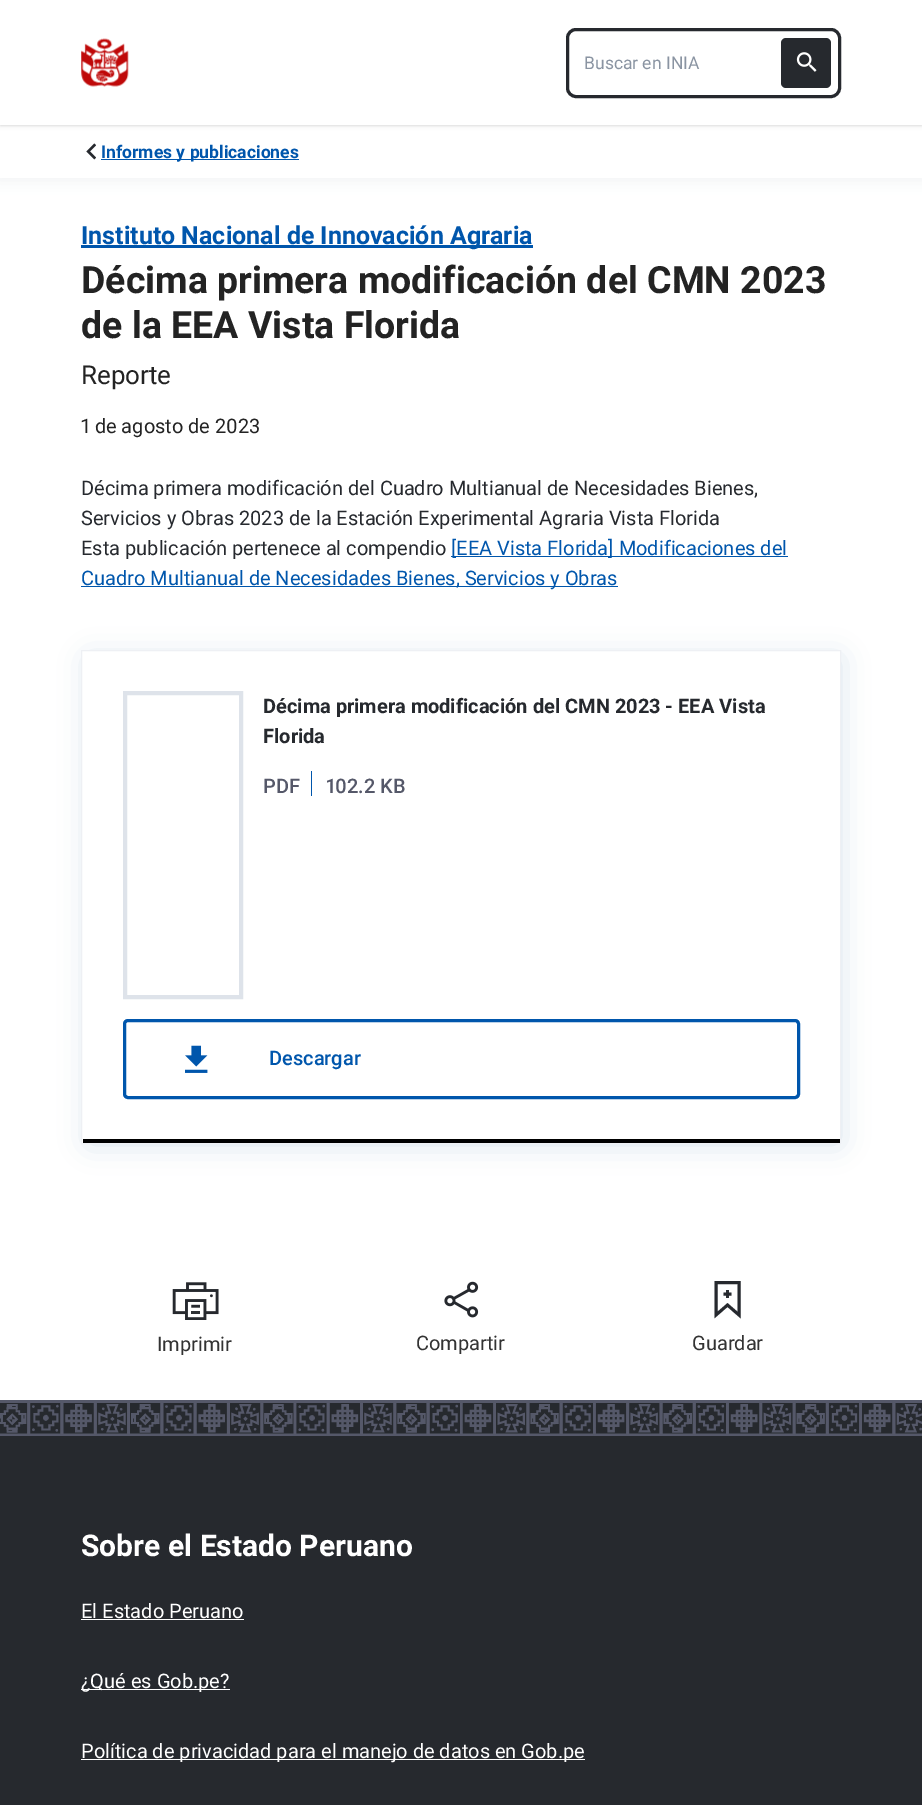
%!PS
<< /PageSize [922 1805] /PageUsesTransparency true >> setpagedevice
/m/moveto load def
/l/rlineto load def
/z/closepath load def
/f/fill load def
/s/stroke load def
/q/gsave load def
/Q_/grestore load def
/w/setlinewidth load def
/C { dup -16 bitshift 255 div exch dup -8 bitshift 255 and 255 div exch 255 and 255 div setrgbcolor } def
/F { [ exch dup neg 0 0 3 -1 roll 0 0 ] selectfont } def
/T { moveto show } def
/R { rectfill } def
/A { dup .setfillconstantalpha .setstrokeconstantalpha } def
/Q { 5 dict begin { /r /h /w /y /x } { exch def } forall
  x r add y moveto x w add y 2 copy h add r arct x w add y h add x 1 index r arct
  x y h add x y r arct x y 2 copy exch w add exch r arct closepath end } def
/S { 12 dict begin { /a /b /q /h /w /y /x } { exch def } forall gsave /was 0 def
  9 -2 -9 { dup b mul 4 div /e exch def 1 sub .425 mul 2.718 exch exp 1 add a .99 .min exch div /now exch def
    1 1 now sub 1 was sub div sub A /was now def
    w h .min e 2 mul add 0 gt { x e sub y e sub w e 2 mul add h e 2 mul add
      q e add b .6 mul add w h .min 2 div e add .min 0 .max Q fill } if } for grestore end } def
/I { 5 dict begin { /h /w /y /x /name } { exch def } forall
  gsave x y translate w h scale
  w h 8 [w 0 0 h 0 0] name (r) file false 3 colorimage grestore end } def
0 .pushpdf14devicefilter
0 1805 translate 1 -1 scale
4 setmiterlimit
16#FFFFFF C
0 0 922 1805 R
16#BEC7D3 C
-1 125 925 55 0 7 .25 S
16#FFFFFF C
0 125 922 53 R
16#000000 C
1 3 920 122 0 1 .1 S
0 1 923 125 0 2 .1 S
16#FFFFFF C
0 0 922 125 R
(1.rgb) 81 38 48 49 I
16#26292E C
3 w
567.5 29.5 272 67 8.5 Q s
/Roboto-Regular 17.5 F
16#8A94A2 C
(Buscar en INIA) 584 69 T
16#26292E C
781 38 50 50 5 Q f
(2.rgb) 796 52 21 20 I
(3.rgb) 86 143 10 17 I
16#0056AC C
101 159 198 1 R
/Roboto-Bold 17.5 F
(Informes y publicaciones) 101 158 T
81 245 452 3 R
/Roboto-Bold 25 F
(Instituto Nacional de Innovación Agraria) 81 244 T
/Roboto-Bold 37.5 F
16#232323 C
(Décima primera modificación del CMN 2023) 81 293 T
(de la EEA Vista Florida) 81 338 T
/Roboto-Regular 26 F
(Reporte) 81 384 T
/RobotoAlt-Regular 20 F
(1 de agosto de 2023) 81 433 T
/Roboto-Regular 20 F
16#26292E C
(Décima primera modificación del Cuadro Multianual de Necesidades Bienes,) 81 495 T
(Servicios y Obras 2023 de la Estación Experimental Agraria Vista Florida) 81 525 T
(Esta publicación pertenece al compendio) 81 555 T
16#0056AC C
451 556 337 1 R
([EEA Vista Florida] Modificaciones del) 451 555 T
81 586 537 1 R
(Cuadro Multianual de Necesidades Bienes, Servicios y Obras) 81 585 T
q
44 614 m 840 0 l 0 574 l -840 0 l z 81 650 m 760 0 l 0 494 l -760 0 l z eoclip newpath
16#D3E0EC C
89 659 750 484 0 14.5 1 S
Q_
16#EEF0F4 C
1 w
81.5 650.5 759 493 rectstroke
16#000000 C
83 1139 757 4 R
16#DEE3EA C
4 w
125 693 116 304 rectstroke
/Roboto-Bold 20 F
16#26292E C
(Décima primera modificación del CMN 2023 - EEA Vista) 263 713 T
(Florida) 263 743 T
/Roboto-Medium 20 F
16#555869 C
(PDF) 263 793 T
16#0056AC C
311 771 1 25 R
/RobotoAlt-Medium 20 F
16#555869 C
(102.2 KB) 326 793 T
16#0056AC C
3 w
124.5 1020.5 674 77 3.5 Q s
(4.rgb) 185 1045 23 28 I
/Roboto-Medium 20 F
(Descargar) 269 1065 T
(5.rgb) 172 1282 47 38 I
/Roboto-Regular 20 F
16#333333 C
(Imprimir) 157 1351 T
(6.rgb) 444 1281 35 37 I
(Compartir) 416 1350 T
16#26292E C
2.9 w
739 1315 m -11.5 -10 l -11.5 10 l 0 -32.5 l 23 0 l z s
16#2D3035 C
726 1290 3 8 R
16#26292E C
723.5 1294 m 8 0 l s
16#333333 C
(Guardar) 692 1350 T
16#26292E C
0 1403 922 31 R
(7.rgb) 0 1400 922 36 I
0 1436 922 369 R
/Roboto-Bold 30 F
16#FFFFFF C
(Sobre el Estado Peruano) 81 1556 T
/Roboto-Regular 20 F
(El Estado Peruano) 81 1618 T
81 1619 163 1 R
81 1689 149 1 R
(¿Qué es Gob.pe?) 81 1688 T
81 1759 504 1 R
(Política de privacidad para el manejo de datos en Gob.pe) 81 1758 T
.poppdf14devicefilter showpage
